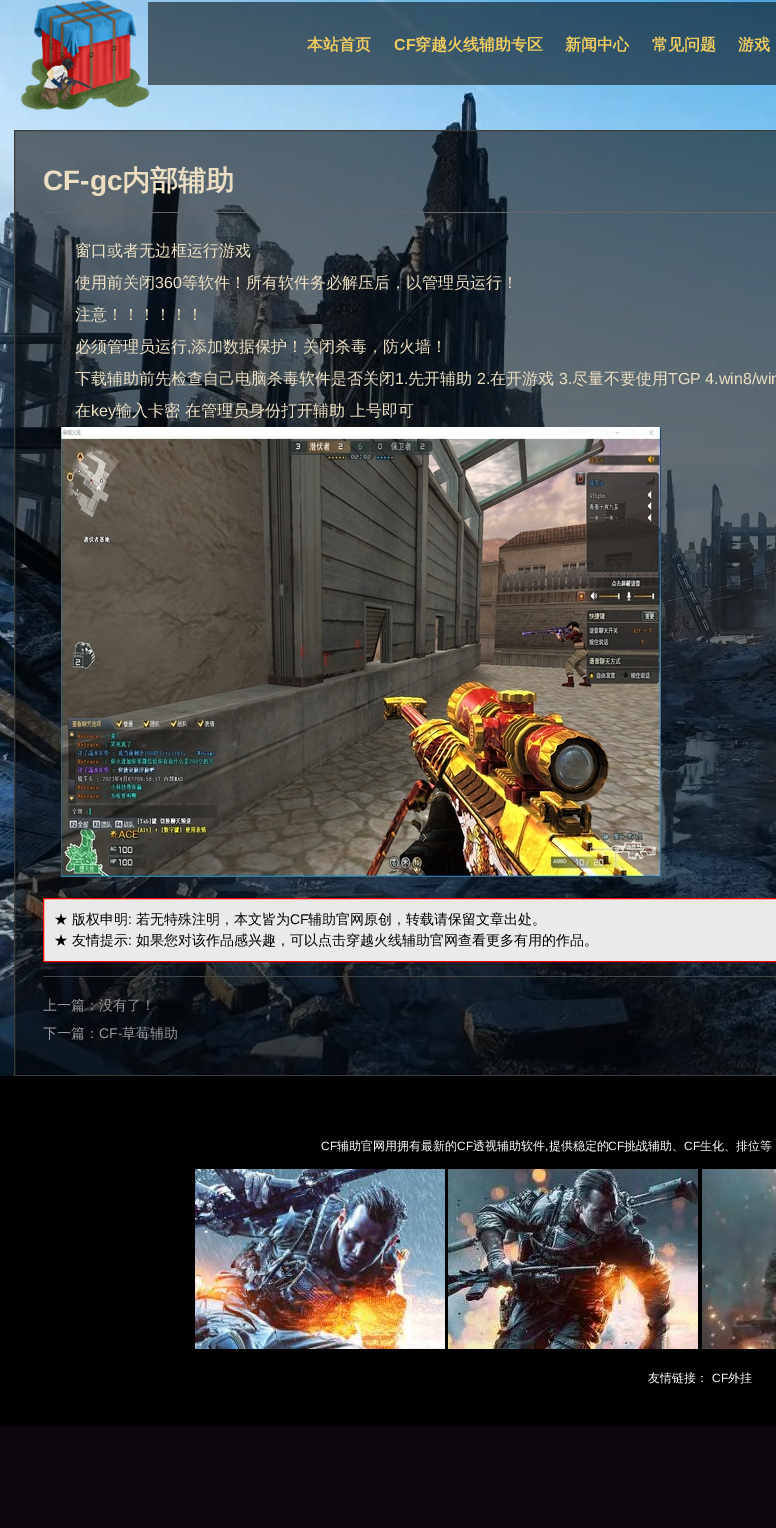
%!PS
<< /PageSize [776 1528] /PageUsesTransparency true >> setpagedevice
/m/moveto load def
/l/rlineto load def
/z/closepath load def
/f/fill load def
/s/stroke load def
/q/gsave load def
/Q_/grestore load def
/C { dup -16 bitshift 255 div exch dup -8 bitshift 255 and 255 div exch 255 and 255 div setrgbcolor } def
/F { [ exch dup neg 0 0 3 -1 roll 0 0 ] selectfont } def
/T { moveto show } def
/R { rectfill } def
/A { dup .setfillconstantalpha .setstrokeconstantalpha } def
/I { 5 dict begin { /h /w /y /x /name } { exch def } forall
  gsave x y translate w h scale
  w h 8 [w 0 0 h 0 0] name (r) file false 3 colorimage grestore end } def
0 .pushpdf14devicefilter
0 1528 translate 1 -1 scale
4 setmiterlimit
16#0C070D C
0 0 776 1528 R
(1.rgb) 0 0 776 1076 I
0.55 A
16#000000 C
148 2 628 83 R
1 A
(2.rgb) 20 0 130 111 I
/WenQuanYiZenHei-Bold 16 F
16#F0CC5E C
(本站首页) 307 50 T
/LiberationSans-Bold 16 F
(CF) 394 50 T
/WenQuanYiZenHei-Bold 16 F
(穿越火线辅助专区) 415 50 T
(新闻中心) 565 50 T
(常见问题) 652 50 T
(游戏) 738 50 T
0.55 A
16#000000 C
14.5 130.5 m 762 0 l 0 945 l -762 0 l z f
1 A
16#3D3D3C C
14.5 130.5 m 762 0 l 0 945 l -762 0 l z s
16#666666 C
43 212 733 1 R
/LiberationSans-Bold 28 F
16#EBDEC2 C
(CF-gc) 43 190 T
/WenQuanYiZenHei-Bold 28 F
(内部辅助) 122 190 T
/WenQuanYiZenHei-Medium 16 F
(窗口或者无边框运行游戏) 75 256 T
(使用前关闭) 75 288 T
/LiberationSans-Regular 16 F
(360) 155 288 T
/WenQuanYiZenHei-Medium 16 F
(等软件！所有软件务必解压后，以管理员运行！) 182 288 T
(注意！！！！！！) 75 320 T
(必须管理员运行) 75 352 T
/LiberationSans-Regular 16 F
(,) 187 352 T
/WenQuanYiZenHei-Medium 16 F
(添加数据保护！关闭杀毒，防火墙！) 191 352 T
(下载辅助前先检查自己电脑杀毒软件是否关闭) 75 384 T
/LiberationSans-Regular 16 F
(1.) 395 384 T
/WenQuanYiZenHei-Medium 16 F
(先开辅助) 408 384 T
/LiberationSans-Regular 16 F
(2.) 477 384 T
/WenQuanYiZenHei-Medium 16 F
(在开游戏) 490 384 T
/LiberationSans-Regular 16 F
(3.) 559 384 T
/WenQuanYiZenHei-Medium 16 F
(尽量不要使用) 572 384 T
/LiberationSans-Regular 16 F
(TGP 4.win8/win) 668 384 T
/WenQuanYiZenHei-Medium 16 F
(在) 75 416 T
/LiberationSans-Regular 16 F
(key) 91 416 T
/WenQuanYiZenHei-Medium 16 F
(输入卡密 在管理员身份打开辅助 上号即可) 116 416 T
(3.rgb) 61 427 600 450 I
16#EBE9E9 C
43.5 898.5 m 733 0 l 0 63 l -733 0 l z q f Q_
16#FF0000 C
s
/WenQuanYiZenHei-Medium 14 F
16#000000 C
(★ 版权申明) 54 924 T
/LiberationSans-Regular 14 F
(:) 128 924 T
/WenQuanYiZenHei-Medium 14 F
(若无特殊注明，本文皆为) 136 924 T
/LiberationSans-Regular 14 F
(CF) 290 924 T
/WenQuanYiZenHei-Medium 14 F
(辅助官网原创，转载请保留文章出处。) 308 924 T
(★ 友情提示) 54 945 T
/LiberationSans-Regular 14 F
(:) 128 945 T
/WenQuanYiZenHei-Medium 14 F
(如果您对该作品感兴趣，可以点击穿越火线辅助官网查看更多有用的作品。) 136 945 T
16#444444 C
43 976 733 1 R
16#999999 C
(上一篇：没有了！) 43 1010 T
(下一篇：) 43 1038 T
/LiberationSans-Regular 14 F
(CF-) 99 1038 T
/WenQuanYiZenHei-Medium 14 F
(草莓辅助) 122 1038 T
16#000000 C
0 1076 776 351 R
/LiberationSans-Regular 12 F
16#FFFFFF C
(CF) 321 1150 T
/WenQuanYiZenHei-Medium 12 F
(辅助官网用拥有最新的) 337 1150 T
/LiberationSans-Regular 12 F
(CF) 457 1150 T
/WenQuanYiZenHei-Medium 12 F
(透视辅助软件 提供稳定的) 473 1150 T
/LiberationSans-Regular 12 F
(CF) 608 1150 T
/WenQuanYiZenHei-Medium 12 F
(挑战辅助、) 624 1150 T
/LiberationSans-Regular 12 F
(CF) 684 1150 T
/WenQuanYiZenHei-Medium 12 F
(生化、排位等) 700 1150 T
/LiberationSans-Regular 12 F
(,) 545 1150 T
(4.rgb) 195 1169 250 180 I
(5.rgb) 448 1169 250 180 I
(6.rgb) 702 1169 74 180 I
/WenQuanYiZenHei-Medium 12 F
(友情链接：) 648 1382 T
/LiberationSans-Regular 12 F
(CF) 712 1382 T
/WenQuanYiZenHei-Medium 12 F
(外挂) 728 1382 T
.poppdf14devicefilter showpage
